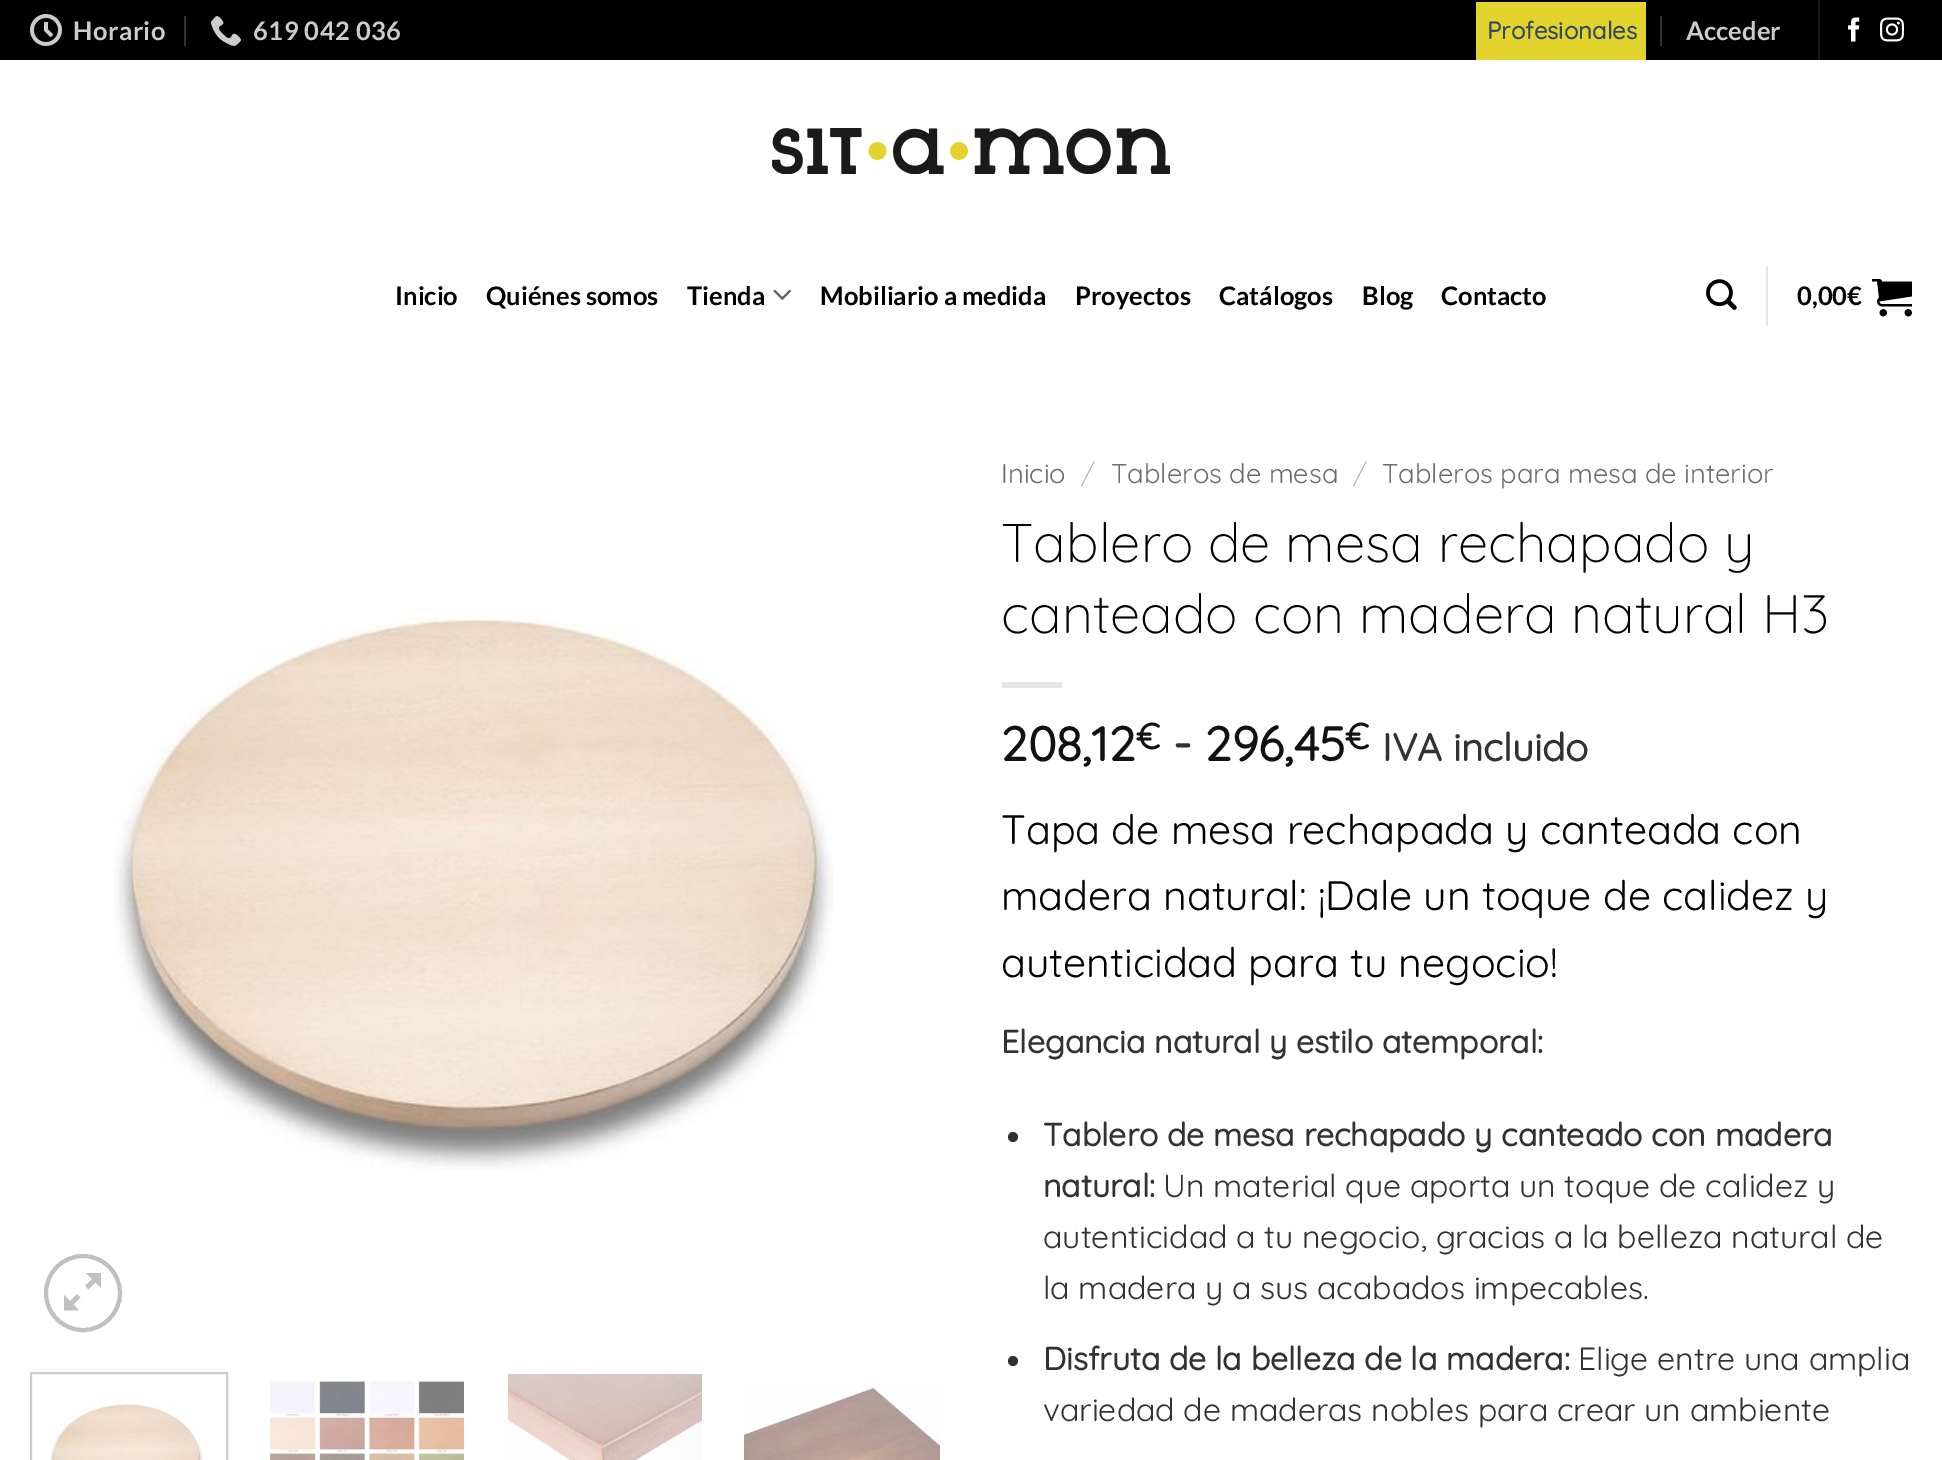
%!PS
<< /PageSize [1942 1460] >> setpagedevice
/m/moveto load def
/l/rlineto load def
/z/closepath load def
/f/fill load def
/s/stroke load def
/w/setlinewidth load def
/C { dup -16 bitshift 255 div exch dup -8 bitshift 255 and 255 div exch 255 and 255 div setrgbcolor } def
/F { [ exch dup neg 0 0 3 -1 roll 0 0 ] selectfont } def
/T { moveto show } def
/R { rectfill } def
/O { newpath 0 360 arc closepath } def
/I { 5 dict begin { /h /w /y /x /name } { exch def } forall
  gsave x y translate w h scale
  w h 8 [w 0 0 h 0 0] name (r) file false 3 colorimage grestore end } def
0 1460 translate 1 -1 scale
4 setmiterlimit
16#FFFFFF C
0 0 1942 1460 R
16#000000 C
0 0 1942 60 R
(1.rgb) 30 14 32 32 I
/Lato-Bold 25.5 F
16#CCCCCC C
73 40 m .5 0 (Horario) ashow
16#333333 C
184 16 2 30 R
(2.rgb) 211 16 30 30 I
16#CCCCCC C
253 40 m .5 0 (619 042 036) ashow
16#E2D32E C
1476 2 170 58 R
/Quicksand-Bold 24 F
16#334862 C
(Profesionales) 1487 39 T
16#333333 C
1660 16 2 30 R
/Lato-Bold 25.5 F
16#CCCCCC C
(Acceder) 1686 40 T
16#1A1A1A C
1818 0 2 60 R
(3.rgb) 1848 17 12 25 I
(4.rgb) 1880 17 24 25 I
(5.rgb) 772 128 398 46 I
16#000000 C
(Inicio) 395 305 T
(Quiénes somos) 486 305 T
(Tienda) 687 305 T
(6.rgb) 773 289 19 11 I
(Mobiliario a medida) 820 305 T
(Proyectos) 1075 305 T
(Catálogos) 1219 305 T
(Blog) 1362 305 T
(Contacto) 1441 305 T
(7.rgb) 1706 279 31 31 I
16#E6E6E6 C
1766 266 2 60 R
16#000000 C
(0,00€) 1797 305 T
(8.rgb) 1872 279 40 38 I
(9.rgb) 114 606 719 564 I
16#C0C0C0 C
4 w
83 1293 37 O s
101 1273 m 0 15 l -5.5 -5.5 l -7 7 l -3.5 -3.5 l 7 -7 l -6 -6 l z 80.5 1297.5 m -7 7 l 5.5 6 l -15 0 l 0 -15.5 l 6 6 l 7 -7 l z f
16#CCCCCC C
2 w
31 1373 196 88 rectstroke
(10.rgb) 50 1402 153 58 I
(11.rgb) 270 1379 194 81 I
(12.rgb) 508 1374 194 86 I
(13.rgb) 744 1385 196 75 I
/Quicksand-Regular 27.25 F
16#6E6E6E C
(Inicio) 1001 483 T
/Quicksand-Light 27.25 F
16#B2B2B2 C
(/) 1081 483 T
/Quicksand-Regular 27.25 F
16#6E6E6E C
(Tableros de mesa) 1111 483 T
/Quicksand-Light 27.25 F
16#B2B2B2 C
(/) 1353 483 T
/Quicksand-Regular 27.25 F
16#6E6E6E C
(Tableros para mesa de interior) 1382 483 T
/Quicksand-Light 54.4 F
16#000000 C
(Tablero de mesa rechapado y) 1001 562 T
(canteado con madera natural H3) 1001 633 T
16#E6E6E6 C
1002 682 60 6 R
/Quicksand-Bold 48 F
16#111111 C
(208,12) 1001 761 T
/Quicksand-Bold 36 F
(€) 1136 749 T
/Quicksand-Bold 48 F
16#333232 C
(-) 1173 761 T
16#111111 C
(296,45) 1205 761 T
/Quicksand-Bold 36 F
(€) 1345 749 T
/Quicksand-Bold 38.5 F
16#333232 C
(IVA incluido) 1382 761 T
/Quicksand-Regular 41 F
16#000000 C
(Tapa de mesa rechapada y canteada con) 1001 844 T
(madera natural: ¡Dale un toque de calidez y) 1001 910 T
(autenticidad para tu negocio!) 1001 977 T
/Quicksand-Bold 32 F
16#333232 C
(Elegancia natural y estilo atemporal:) 1001 1053 T
1013 1137 5 O f
(Tablero de mesa rechapado y canteado con madera) 1043 1146 T
(natural:) 1043 1197 T
/Quicksand-Regular 32 F
(Un material que aporta un toque de calidez y) 1163 1197 T
(autenticidad a tu negocio, gracias a la belleza natural de) 1043 1248 T
(la madera y a sus acabados impecables.) 1043 1299 T
1013 1361 5 O f
/Quicksand-Bold 32 F
(Disfruta de la belleza de la madera:) 1043 1370 T
/Quicksand-Regular 32 F
(Elige entre una amplia) 1578 1370 T
(variedad de maderas nobles para crear un ambiente) 1043 1421 T
showpage
